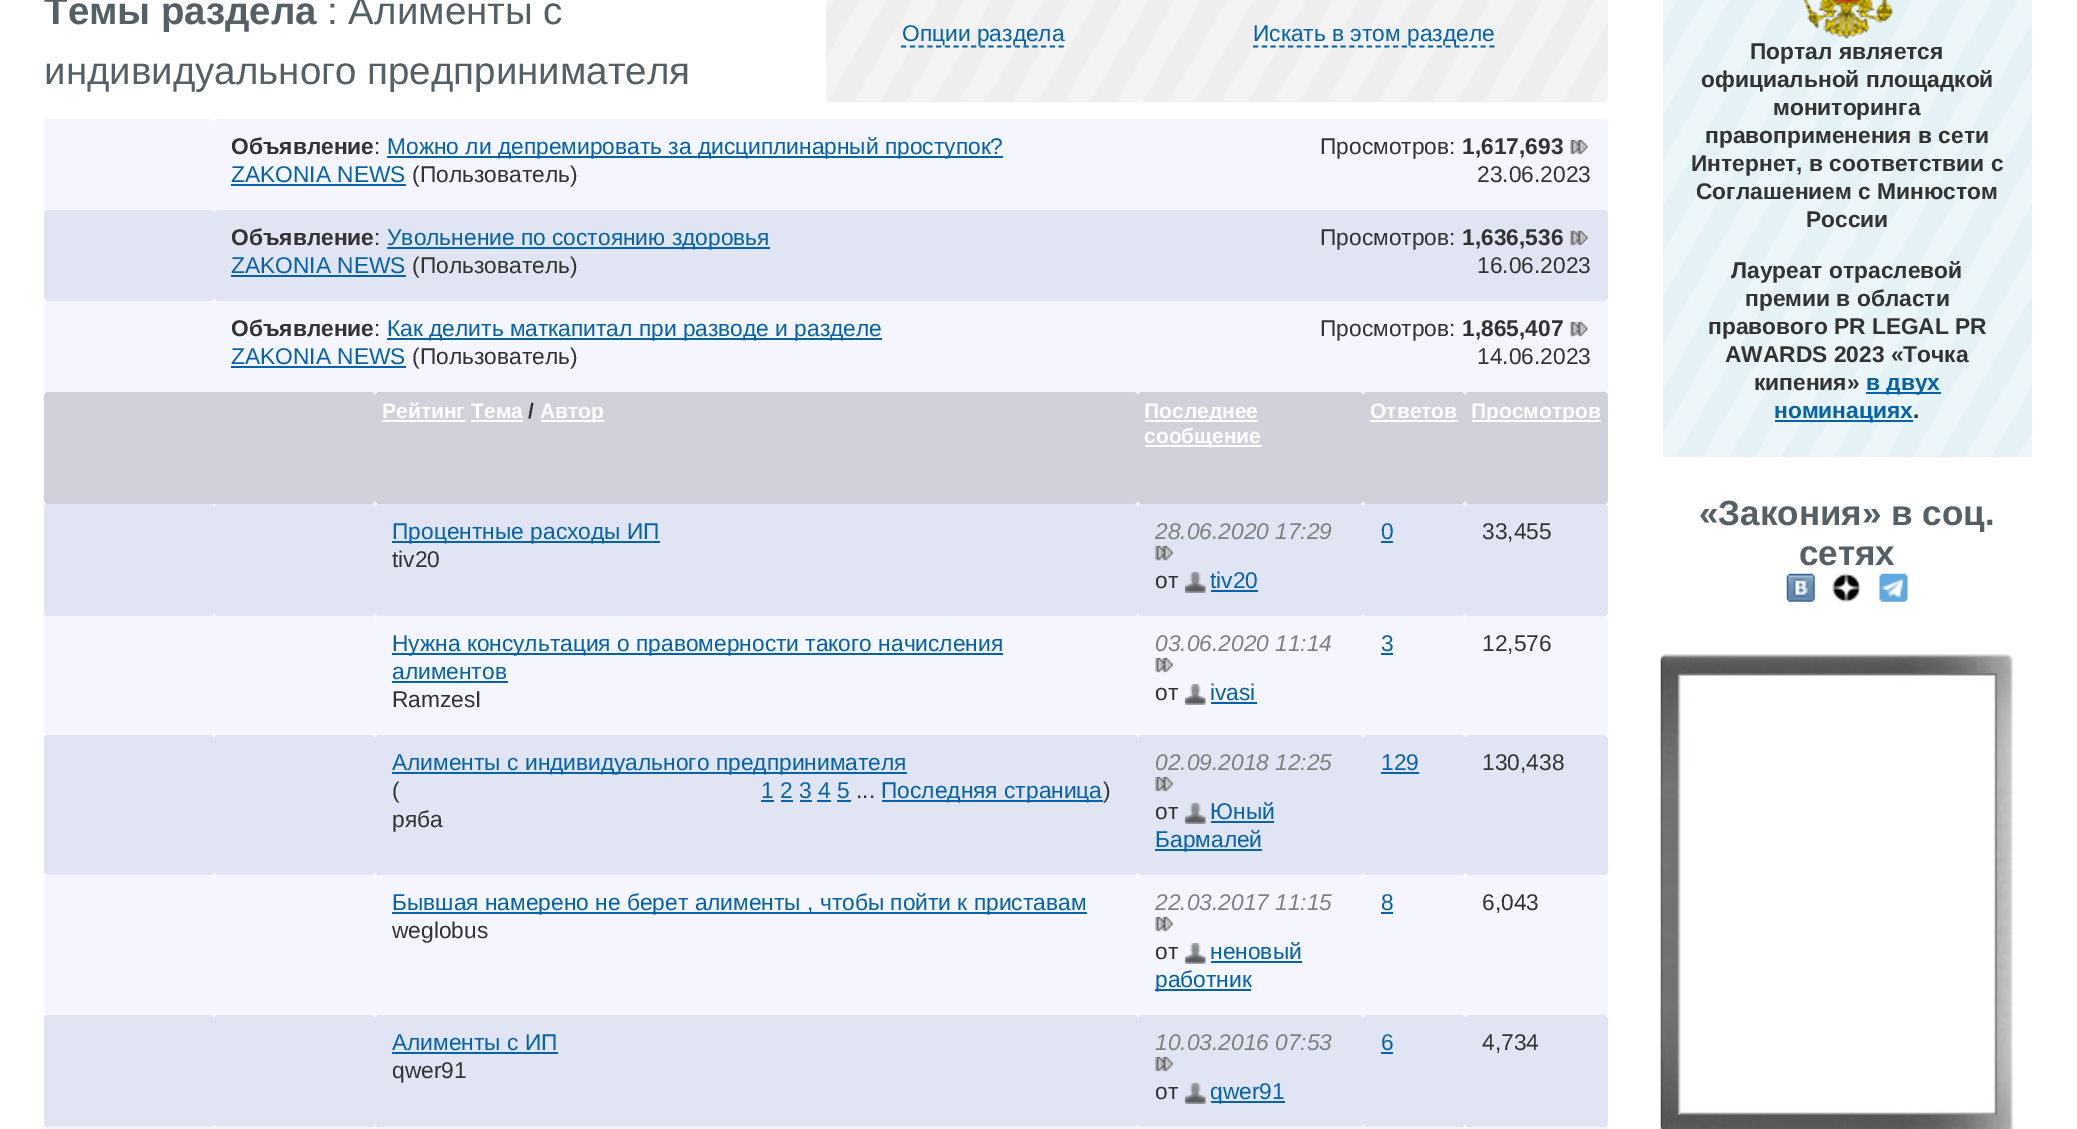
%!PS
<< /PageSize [2077 1129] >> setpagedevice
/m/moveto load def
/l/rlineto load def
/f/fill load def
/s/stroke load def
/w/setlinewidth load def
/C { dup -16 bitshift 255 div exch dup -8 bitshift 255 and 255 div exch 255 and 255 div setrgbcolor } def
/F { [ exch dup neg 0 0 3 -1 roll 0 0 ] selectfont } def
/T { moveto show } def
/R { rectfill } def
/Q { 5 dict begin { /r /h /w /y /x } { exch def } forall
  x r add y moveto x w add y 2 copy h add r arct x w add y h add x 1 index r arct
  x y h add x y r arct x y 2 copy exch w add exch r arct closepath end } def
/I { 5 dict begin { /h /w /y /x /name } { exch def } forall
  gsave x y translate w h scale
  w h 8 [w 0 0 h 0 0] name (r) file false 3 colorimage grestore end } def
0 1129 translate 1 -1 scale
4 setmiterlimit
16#FFFFFF C
0 0 2077 1129 R
/LiberationSans-Bold 38.5 F
16#555F66 C
(Темы раздела) 44 24 T
/LiberationSans-Regular 38.5 F
(: Алименты с) 327 24 T
(индивидуального предпринимателя) 44 84 T
16#EEEEEE C
826 -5 315 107 5 Q f
(1.rgb) 826 0 315 101 I
16#0762A9 C
1.8 w
[5.25 3.5] 0 setdash
901 46.5 m 163 0 l s
/LiberationSans-Regular 22.75 F
(Опции раздела) 902 41 T
16#EEEEEE C
1141 -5 467 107 5 Q f
(2.rgb) 1141 0 467 101 I
16#0762A9 C
1253 46.5 m 241.5 0 l s
(Искать в этом разделе) 1253 41 T
16#F5F5FF C
44 119 170 91 4 Q f
214 119 1394 91 4 Q f
/LiberationSans-Bold 22.75 F
16#333333 C
(Объявление) 231 154 T
/LiberationSans-Regular 22.75 F
(:) 374 154 T
16#0762A9 C
387 156 616 2 R
(Можно ли депремировать за дисциплинарный проступок?) 387 154 T
16#333333 C
(Просмотров:) 1320 154 T
/LiberationSans-Bold 22.75 F
(1,617,693) 1462 154 T
(3.rgb) 1570 139 18 16 I
/LiberationSans-Regular 22.75 F
16#0762A9 C
(ZAKONIA NEWS) 231 182 T
231 184 175 2 R
16#333333 C
(\(Пользователь\)) 412 182 T
(23.06.2023) 1477 182 T
16#E1E4F2 C
44 210 170 91 4 Q f
214 210 1394 91 4 Q f
/LiberationSans-Bold 22.75 F
16#333333 C
(Объявление) 231 245 T
/LiberationSans-Regular 22.75 F
(:) 374 245 T
16#0762A9 C
387 247 383 2 R
(Увольнение по состоянию здоровья) 387 245 T
16#333333 C
(Просмотров:) 1320 245 T
/LiberationSans-Bold 22.75 F
(1,636,536) 1462 245 T
(4.rgb) 1570 230 18 16 I
/LiberationSans-Regular 22.75 F
16#0762A9 C
(ZAKONIA NEWS) 231 273 T
231 275 175 2 R
16#333333 C
(\(Пользователь\)) 412 273 T
(16.06.2023) 1477 273 T
16#F5F5FF C
44 301 170 91 4 Q f
214 301 1394 91 4 Q f
/LiberationSans-Bold 22.75 F
16#333333 C
(Объявление) 231 336 T
/LiberationSans-Regular 22.75 F
(:) 374 336 T
16#0762A9 C
387 338 495 2 R
(Как делить маткапитал при разводе и разделе) 387 336 T
16#333333 C
(Просмотров:) 1320 336 T
/LiberationSans-Bold 22.75 F
(1,865,407) 1462 336 T
(3.rgb) 1570 321 18 16 I
/LiberationSans-Regular 22.75 F
16#0762A9 C
(ZAKONIA NEWS) 231 364 T
231 366 175 2 R
16#333333 C
(\(Пользователь\)) 412 364 T
(14.06.2023) 1477 364 T
16#D0D1DA C
44 392 331 112 4 Q f
375 392 763 112 4 Q f
/LiberationSans-Bold 21 F
16#FFFFFF C
(Рейтинг Тема) 382 418 T
382 420 84 2 R
16#333333 C
(/) 528 418 T
16#FFFFFF C
541 420 63 2 R
(Автор) 540 418 T
471 420 52 2 R
16#D0D1DA C
1138 392 225 112 4 Q f
16#FFFFFF C
1145 420 113 2 R
(Последнее) 1144 418 T
1145 445 117 2 R
(сообщение) 1144 443 T
16#D0D1DA C
1363 392 102 112 4 Q f
16#FFFFFF C
(Ответов) 1370 418 T
1370 420 88 2 R
16#D0D1DA C
1465 392 143 112 4 Q f
16#FFFFFF C
1472 420 129 2 R
(Просмотров) 1471 418 T
16#E1E4F2 C
44 504 170 112 4 Q f
214 504 161 112 4 Q f
375 504 763 112 4 Q f
16#0762A9 C
392 541 268 2 R
/LiberationSans-Regular 22.75 F
(Процентные расходы ИП) 392 539 T
16#333333 C
(tiv20) 392 567 T
16#E1E4F2 C
1138 504 225 112 4 Q f
/LiberationSans-Italic 22.75 F
16#808080 C
(28.06.2020 17:29) 1155 539 T
(5.rgb) 1155 545 18 16 I
/LiberationSans-Regular 22.75 F
16#333333 C
(от) 1155 588 T
(6.rgb) 1184 572 22 21 I
16#0762A9 C
(tiv20) 1210 588 T
1211 590 47 2 R
16#E1E4F2 C
1363 504 102 112 4 Q f
16#0762A9 C
(0) 1381 539 T
1381 541 12 2 R
16#E1E4F2 C
1465 504 143 112 4 Q f
16#333333 C
(33,455) 1482 539 T
16#F5F5FF C
44 616 170 119 4 Q f
214 616 161 119 4 Q f
375 616 763 119 4 Q f
16#0762A9 C
392 653 611 2 R
(Нужна консультация о правомерности такого начисления) 392 651 T
(алиментов) 392 679 T
392 681 116 2 R
16#333333 C
(RamzesI) 392 707 T
16#F5F5FF C
1138 616 225 119 4 Q f
/LiberationSans-Italic 22.75 F
16#808080 C
(03.06.2020 11:14) 1155 651 T
(7.rgb) 1155 657 18 16 I
/LiberationSans-Regular 22.75 F
16#333333 C
(от) 1155 700 T
(8.rgb) 1184 684 22 21 I
16#0762A9 C
(ivasi) 1210 700 T
1211 702 46 2 R
16#F5F5FF C
1363 616 102 119 4 Q f
16#0762A9 C
(3) 1381 651 T
1381 653 12 2 R
16#F5F5FF C
1465 616 143 119 4 Q f
16#333333 C
(12,576) 1482 651 T
16#E1E4F2 C
44 735 170 140 4 Q f
214 735 161 140 4 Q f
375 735 763 140 4 Q f
16#0762A9 C
392 772 515 2 R
(Алименты с индивидуального предпринимателя) 392 770 T
16#333333 C
(\() 392 798 T
16#0762A9 C
(1 2 3 4 5) 761 798 T
761 800 13 2 R
781 800 12 2 R
800 800 12 2 R
817 800 14 2 R
16#333333 C
(...) 856 798 T
16#0762A9 C
837 800 14 2 R
882 800 221 2 R
(Последняя страница) 881 798 T
16#333333 C
(\)) 1103 798 T
(ряба) 392 827 T
16#E1E4F2 C
1138 735 225 140 4 Q f
/LiberationSans-Italic 22.75 F
16#808080 C
(02.09.2018 12:25) 1155 770 T
(5.rgb) 1155 776 18 16 I
/LiberationSans-Regular 22.75 F
16#333333 C
(от) 1155 819 T
(6.rgb) 1184 803 22 21 I
16#0762A9 C
(Юный) 1210 819 T
1211 821 63 2 R
1155 849 107 2 R
(Бармалей) 1155 847 T
16#E1E4F2 C
1363 735 102 140 4 Q f
16#0762A9 C
(129) 1381 770 T
1381 772 38 2 R
16#E1E4F2 C
1465 735 143 140 4 Q f
16#333333 C
(130,438) 1482 770 T
16#F5F5FF C
44 875 170 140 4 Q f
214 875 161 140 4 Q f
375 875 763 140 4 Q f
16#0762A9 C
392 912 695 2 R
(Бывшая намерено не берет алименты , чтобы пойти к приставам) 392 910 T
16#333333 C
(weglobus) 392 938 T
16#F5F5FF C
1138 875 225 140 4 Q f
/LiberationSans-Italic 22.75 F
16#808080 C
(22.03.2017 11:15) 1155 910 T
(7.rgb) 1155 916 18 16 I
/LiberationSans-Regular 22.75 F
16#333333 C
(от) 1155 959 T
(8.rgb) 1184 943 22 21 I
16#0762A9 C
(неновый) 1210 959 T
1211 961 91 2 R
1155 989 96 2 R
(работник) 1155 987 T
16#F5F5FF C
1363 875 102 140 4 Q f
16#0762A9 C
(8) 1381 910 T
1381 912 12 2 R
16#F5F5FF C
1465 875 143 140 4 Q f
16#333333 C
(6,043) 1482 910 T
16#E1E4F2 C
44 1015 170 112 4 Q f
214 1015 161 112 4 Q f
375 1015 763 112 4 Q f
16#0762A9 C
(Алименты с ИП) 392 1050 T
392 1052 166 2 R
16#333333 C
(qwer91) 392 1078 T
16#E1E4F2 C
1138 1015 225 112 4 Q f
/LiberationSans-Italic 22.75 F
16#808080 C
(10.03.2016 07:53) 1155 1050 T
(5.rgb) 1155 1056 18 16 I
/LiberationSans-Regular 22.75 F
16#333333 C
(от) 1155 1099 T
(6.rgb) 1184 1083 22 21 I
16#0762A9 C
1211 1101 74 2 R
(qwer91) 1210 1099 T
16#E1E4F2 C
1363 1015 102 112 4 Q f
16#0762A9 C
(6) 1381 1050 T
1381 1052 12 2 R
16#E1E4F2 C
1465 1015 143 112 4 Q f
16#333333 C
(4,734) 1482 1050 T
16#F5F5FF C
44 1127 170 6 4 Q f
214 1127 161 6 4 Q f
375 1127 763 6 4 Q f
1138 1127 225 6 4 Q f
1363 1127 102 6 4 Q f
1465 1127 143 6 4 Q f
16#E4F2F5 C
1663 0 369 457 R
(9.rgb) 1663 0 369 457 I
(10.rgb) 1803 0 91 39 I
/LiberationSans-Bold 22.75 F
16#333333 C
(Портал является) 1750 59 T
(официальной площадкой) 1701 87 T
(мониторинга) 1773 115 T
(правоприменения в сети) 1705 143 T
(Интернет, в соответствии с) 1691 171 T
(Соглашением с Минюстом) 1696 199 T
(России) 1806 227 T
(Лауреат отраслевой) 1731 278 T
(премии в области) 1745 306 T
(правового PR LEGAL PR) 1708 334 T
(AWARDS 2023 «Точка) 1725 362 T
(кипения») 1754 390 T
16#0762A9 C
1866 392 75 2 R
(в двух) 1866 390 T
1775 420 138 2 R
(номинациях) 1774 418 T
16#333333 C
(.) 1913 418 T
/LiberationSans-Bold 35 F
16#555F66 C
(«Закония» в соц.) 1699 525 T
(сетях) 1799 565 T
(11.rgb) 1786 573 29 29 I
(12.rgb) 1832 573 29 29 I
(13.rgb) 1879 573 29 29 I
(14.rgb) 1660 654 353 475 I
showpage
